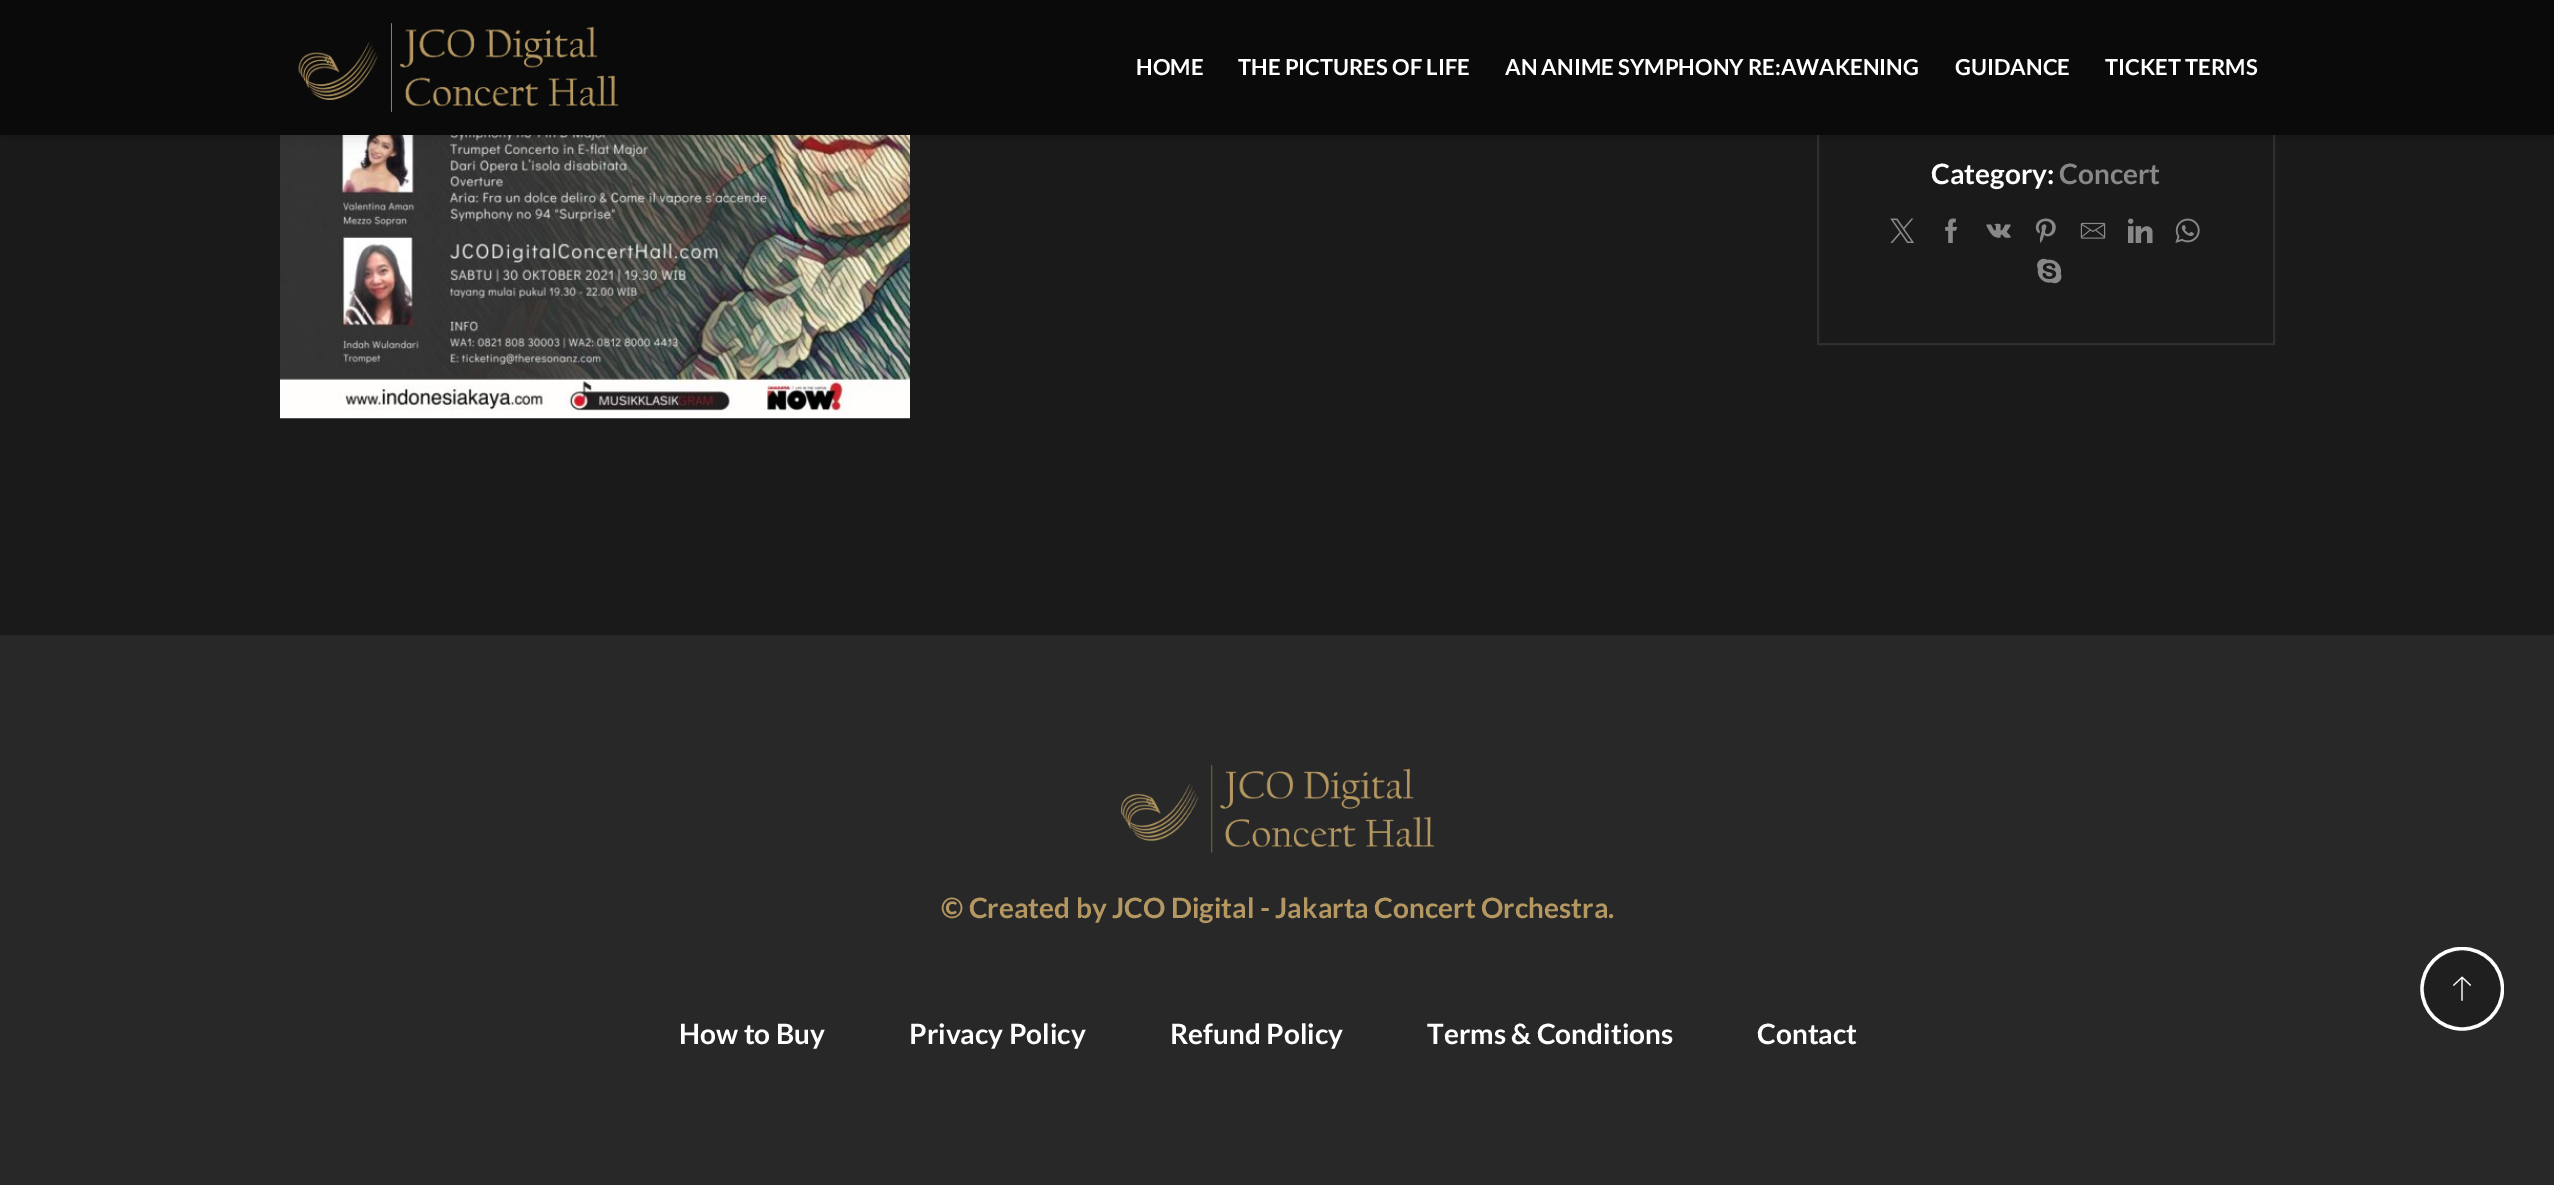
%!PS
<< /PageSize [2554 1185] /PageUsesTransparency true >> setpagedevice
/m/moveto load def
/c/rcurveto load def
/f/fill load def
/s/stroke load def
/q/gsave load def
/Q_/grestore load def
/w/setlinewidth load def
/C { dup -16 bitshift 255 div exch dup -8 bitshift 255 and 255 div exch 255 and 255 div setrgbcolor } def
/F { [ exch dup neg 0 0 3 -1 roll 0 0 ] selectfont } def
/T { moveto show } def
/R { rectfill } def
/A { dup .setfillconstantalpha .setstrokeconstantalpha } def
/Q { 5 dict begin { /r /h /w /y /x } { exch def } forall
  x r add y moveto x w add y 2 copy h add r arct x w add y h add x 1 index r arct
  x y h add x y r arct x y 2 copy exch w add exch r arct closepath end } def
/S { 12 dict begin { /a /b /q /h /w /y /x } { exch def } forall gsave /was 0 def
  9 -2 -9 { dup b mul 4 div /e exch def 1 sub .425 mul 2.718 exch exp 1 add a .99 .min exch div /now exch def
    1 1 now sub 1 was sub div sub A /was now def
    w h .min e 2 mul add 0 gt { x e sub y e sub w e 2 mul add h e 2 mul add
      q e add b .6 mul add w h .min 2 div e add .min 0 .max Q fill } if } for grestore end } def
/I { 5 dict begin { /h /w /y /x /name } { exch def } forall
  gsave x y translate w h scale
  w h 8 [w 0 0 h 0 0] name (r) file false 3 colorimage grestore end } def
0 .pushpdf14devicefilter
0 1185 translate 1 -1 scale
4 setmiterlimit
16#282828 C
0 0 2554 1185 R
16#1A1A1A C
0 135 2554 500 R
(2.rgb) 280 135 630 284 I
16#2F2F2F C
2 w
1818 -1 456 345 rectstroke
16#000000 C
4 0 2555 135 0 10.5 .15 S
16#0A0A0A C
0 0 2554 135 R
(1.rgb) 298 23 321 89 I
/Lato-Bold 22 F
16#FFFFFF C
(HOME) 1136 75 T
(THE PICTURES OF LIFE) 1238 75 T
(AN ANIME SYMPHONY RE:AWAKENING) 1505 75 T
(GUIDANCE) 1955 75 T
(TICKET TERMS) 2105 75 T
/Lato-Bold 28 F
(Category:) 1931 184 T
16#888888 C
(Concert) 2059 184 T
(3.rgb) 1890 218 24 25 I
(4.rgb) 1945 218 13 25 I
(5.rgb) 1986 223 25 15 I
(6.rgb) 2035 218 21 25 I
(7.rgb) 2080 222 26 17 I
(8.rgb) 2128 218 25 26 I
(9.rgb) 2175 218 25 25 I
(10.rgb) 2037 258 25 26 I
(11.rgb) 1121 764 313 89 I
16#B49761 C
(© Created by JCO Digital - Jakarta Concert Orchestra.) 941 918 T
16#FFFFFF C
(How to Buy) 679 1044 T
(Privacy Policy) 909 1044 T
(Refund Policy) 1170 1044 T
(Terms & Conditions) 1427 1044 T
(Contact) 1757 1044 T
16#1F1F1F C
2423 950 79 78 39 Q q f Q_
16#2F2F2F C
s
q
2420 947 84 84 rectclip
16#FFFFFF C
3.3 w
2462 948.5 m 22.5 0 40.5 18 40.5 40.5 c 0 22 -18 40 -40.5 40 c -22 0 -40 -18 -40 -40 c 0 -22.5 18 -40.5 40 -40.5 c s
Q_
(12.rgb) 2453 976 18 25 I
.poppdf14devicefilter showpage
